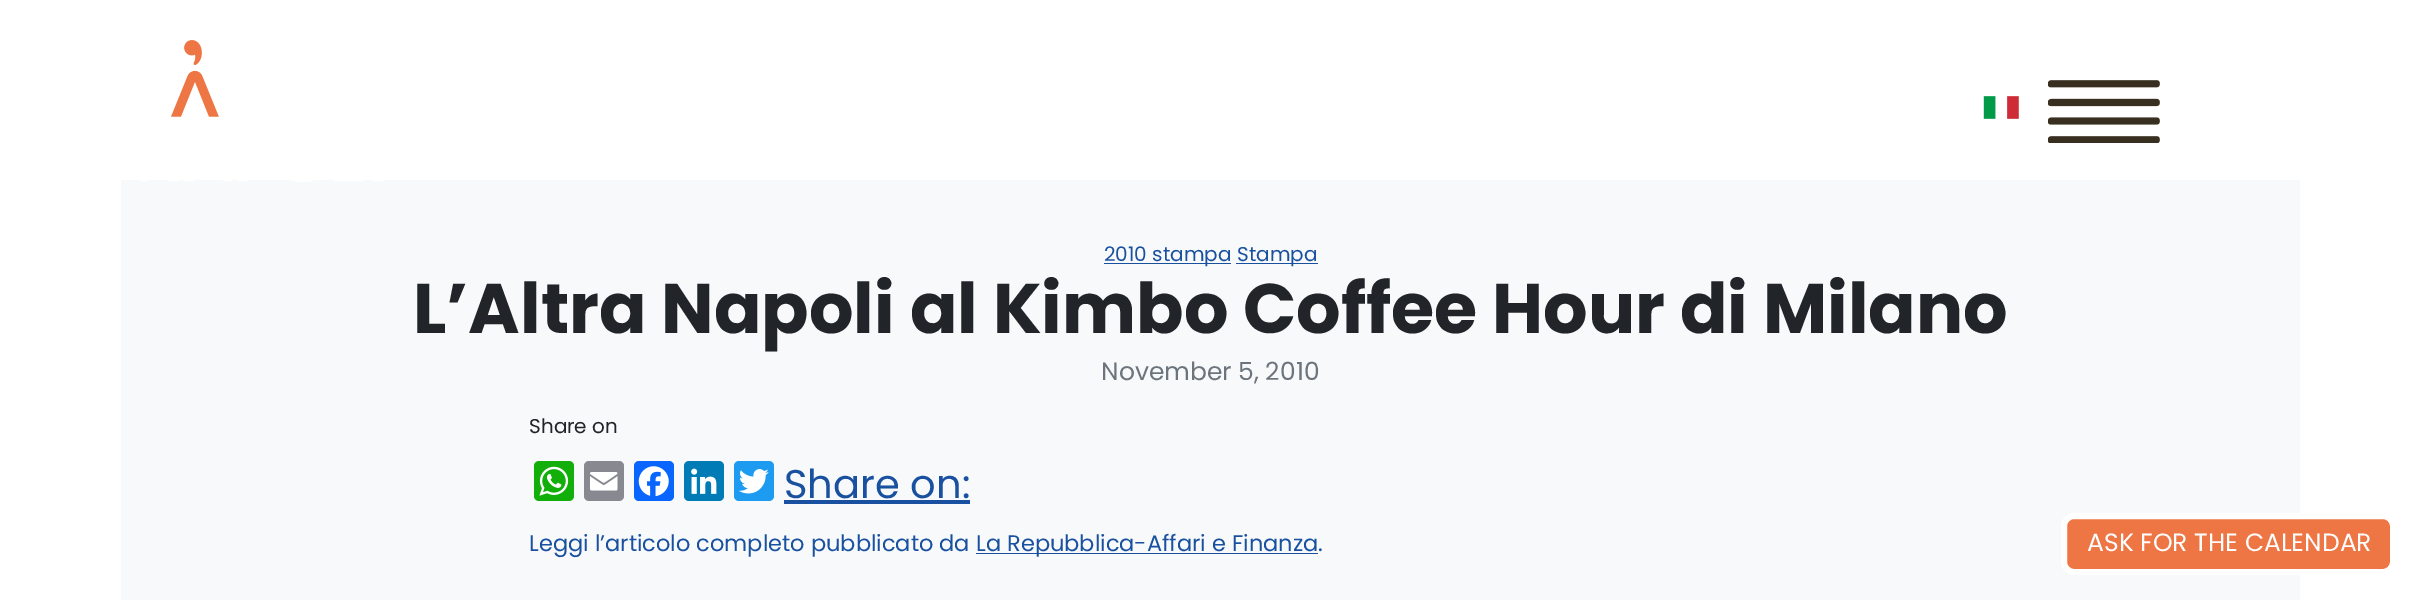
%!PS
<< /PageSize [2421 600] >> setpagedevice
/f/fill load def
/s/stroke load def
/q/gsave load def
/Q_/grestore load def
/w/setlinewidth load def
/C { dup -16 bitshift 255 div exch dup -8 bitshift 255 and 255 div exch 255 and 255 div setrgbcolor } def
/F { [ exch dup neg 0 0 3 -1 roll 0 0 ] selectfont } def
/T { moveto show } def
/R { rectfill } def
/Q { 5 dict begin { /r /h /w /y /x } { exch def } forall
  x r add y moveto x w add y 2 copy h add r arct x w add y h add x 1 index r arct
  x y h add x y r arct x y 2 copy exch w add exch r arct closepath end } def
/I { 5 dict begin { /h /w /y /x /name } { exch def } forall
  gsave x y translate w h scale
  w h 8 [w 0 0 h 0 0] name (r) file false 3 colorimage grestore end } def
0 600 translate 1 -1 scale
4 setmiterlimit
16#FFFFFF C
0 0 2421 600 R
16#F8F9FA C
121 180 2179 420 R
(1.rgb) 139 40 244 142 I
(2.rgb) 1983 96 36 23 I
(3.rgb) 2048 80 112 63 I
16#1951A0 C
1104 263 127 1 R
/Poppins-Regular 20 F
(2010 stampa) 1104 261 T
1236 263 82 1 R
(Stampa) 1237 261 T
/Poppins-Bold 70 F
16#212529 C
(L’Altra Napoli al Kimbo Coffee Hour di Milano) 413 333 T
/Poppins-Regular 25 F
16#6C757D C
(November 5, 2010) 1101 380 T
/Poppins-Regular 20 F
16#212529 C
(Share on) 529 433 T
16#12AF0A C
534 461 40 40 5 Q f
(4.rgb) 539 466 30 30 I
16#888990 C
584 461 40 40 5 Q f
(5.rgb) 590 472 28 19 I
16#0866FF C
634 461 40 40 5 Q f
(6.rgb) 638 466 31 31 I
16#007BB5 C
684 461 40 40 5 Q f
(7.rgb) 691 468 26 26 I
16#1D9BF0 C
734 461 40 40 5 Q f
(8.rgb) 739 469 30 25 I
/Poppins-Regular 40 F
16#1951A0 C
(Share on:) 784 498 T
784 500 186 4 R
/Poppins-Regular 22.5 F
(Leggi l’articolo completo pubblicato da) 529 551 T
976 553 342 1 R
(La Repubblica-Affari e Finanza.) 976 551 T
16#EE7544 C
2064 516 329 56 10 Q q f Q_
16#FFFFFF C
6 w
s
/Poppins-Regular 25 F
(ASK FOR THE CALENDAR) 2087 551 T
showpage
